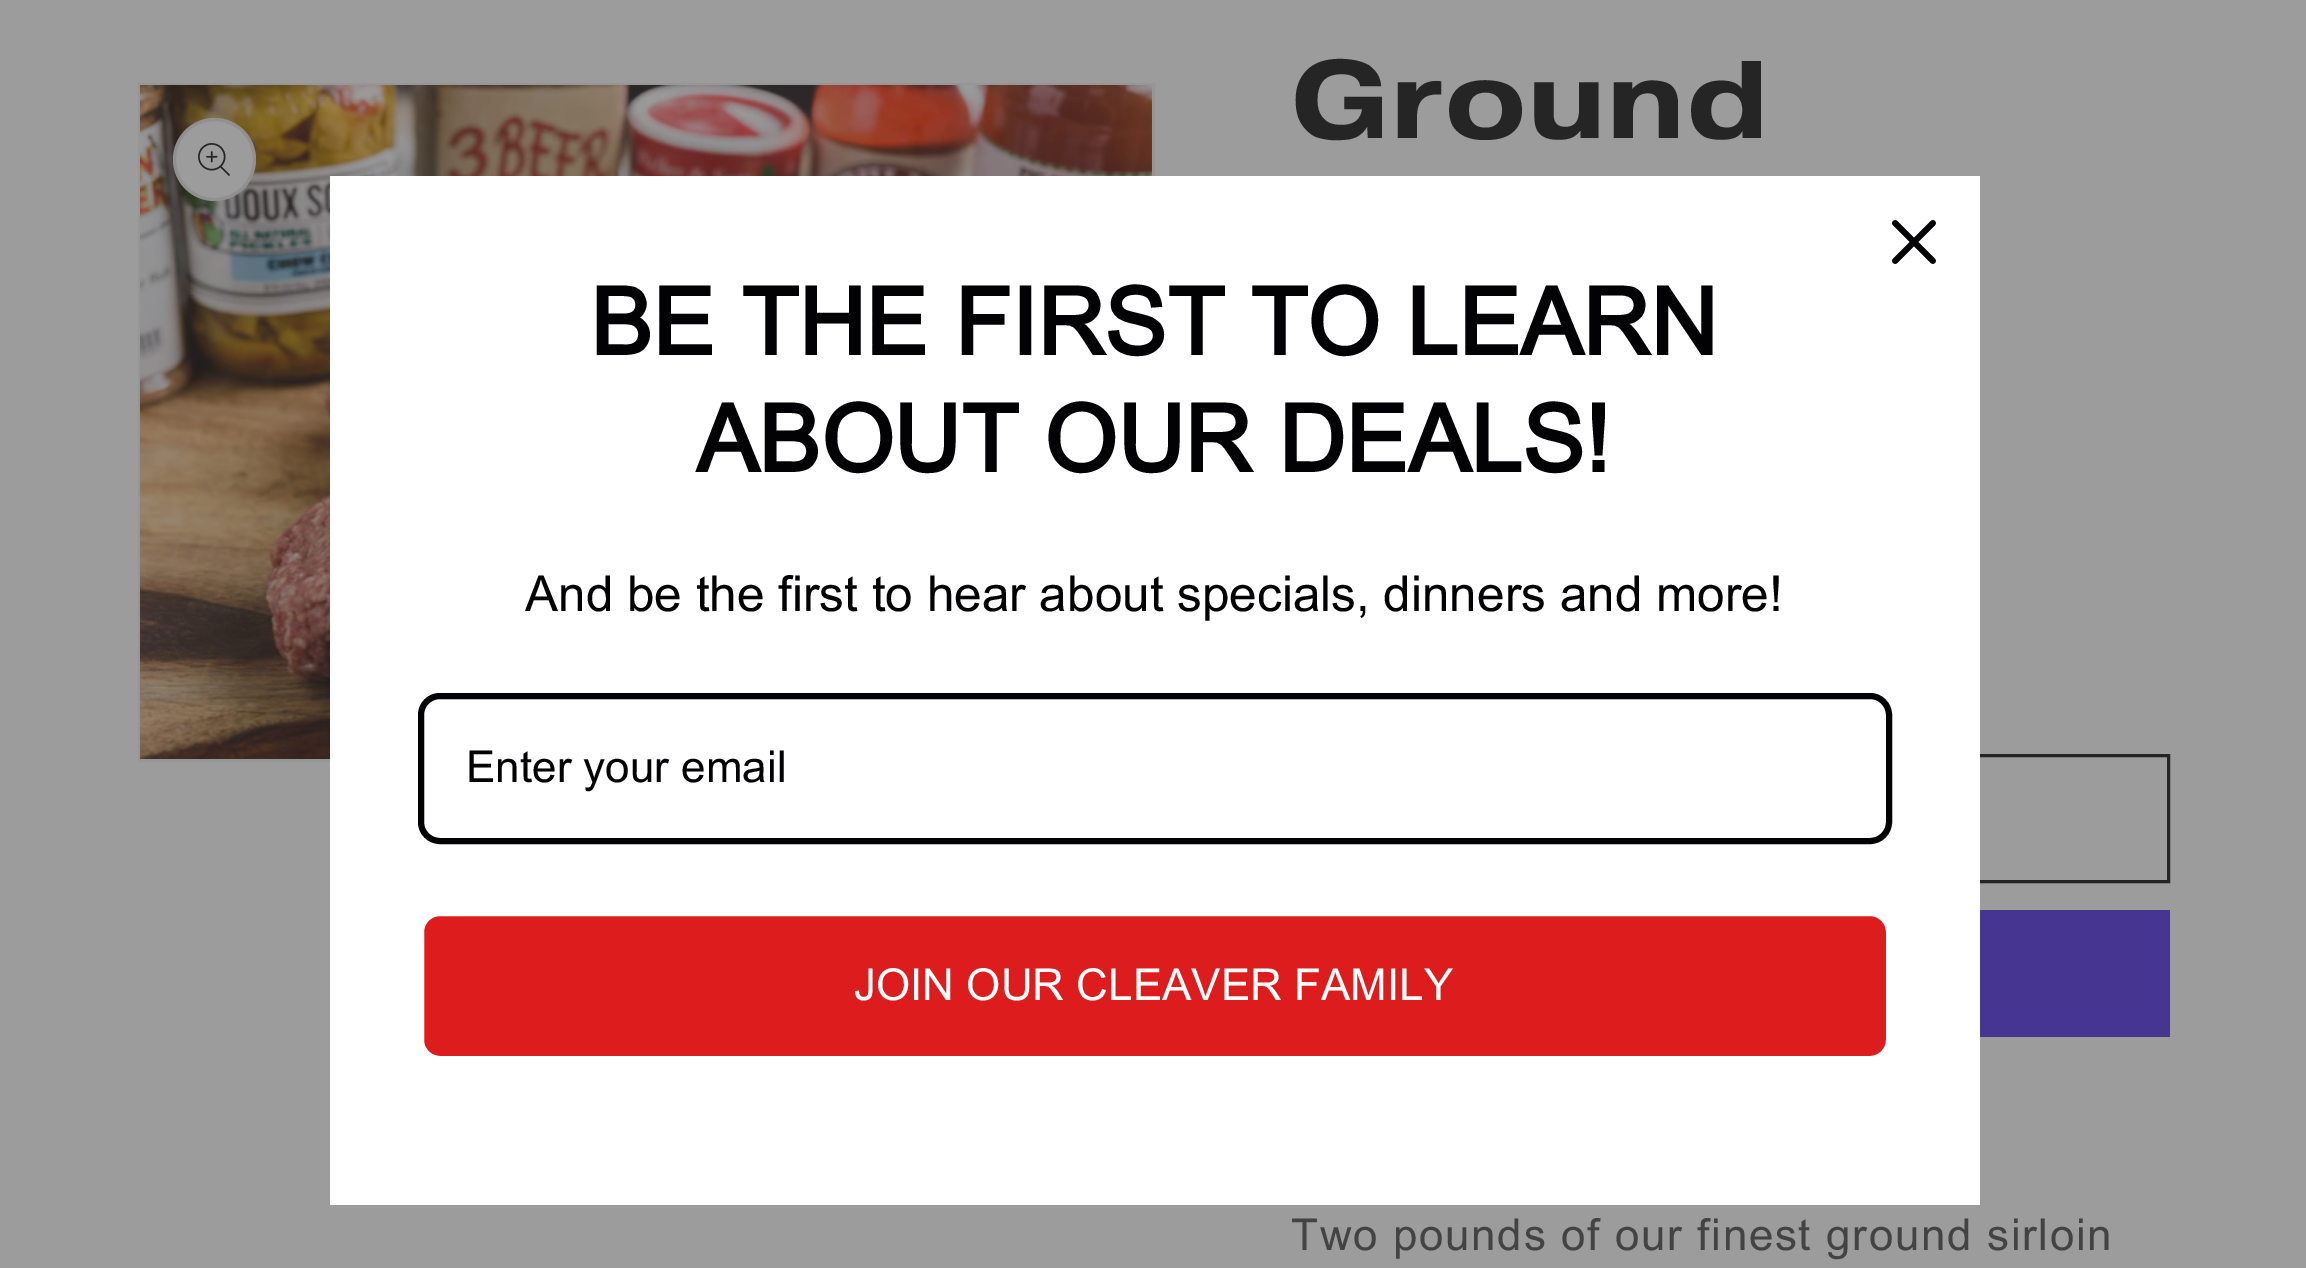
%!PS
<< /PageSize [2306 1268] /PageUsesTransparency true >> setpagedevice
/m/moveto load def
/f/fill load def
/s/stroke load def
/q/gsave load def
/Q_/grestore load def
/w/setlinewidth load def
/C { dup -16 bitshift 255 div exch dup -8 bitshift 255 and 255 div exch 255 and 255 div setrgbcolor } def
/F { [ exch dup neg 0 0 3 -1 roll 0 0 ] selectfont } def
/T { moveto show } def
/R { rectfill } def
/A { dup .setfillconstantalpha .setstrokeconstantalpha } def
/O { newpath 0 360 arc closepath } def
/Q { 5 dict begin { /r /h /w /y /x } { exch def } forall
  x r add y moveto x w add y 2 copy h add r arct x w add y h add x 1 index r arct
  x y h add x y r arct x y 2 copy exch w add exch r arct closepath end } def
/I { 5 dict begin { /h /w /y /x /name } { exch def } forall
  gsave x y translate w h scale
  w h 8 [w 0 0 h 0 0] name (r) file false 3 colorimage grestore end } def
0 .pushpdf14devicefilter
0 1268 translate 1 -1 scale
4 setmiterlimit
16#9C9C9C C
0 0 2306 1268 R
16#969696 C
3 w
139.5 84.5 1014 676 rectstroke
(1.rgb) 140 85 1012 674 I
16#9C9C9C C
214.5 159.5 41.5 O f
0.1 A
16#252525 C
214.5 159.5 40 O s
1 A
(2.rgb) 198 143 32 33 I
/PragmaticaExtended-Bold 110 F
1291 138 m 1.65 0 (Ground) ashow
1294.5 755.5 874 126 rectstroke
16#463692 C
1980 910 190 127 R
/Arial-Regular 44 F
16#434343 C
1291 1250 m 1.65 0 (Two pounds of our finest ground sirloin) ashow
16#FFFFFF C
330 176 1650 1029 R
(3.rgb) 1892 220 44 44 I
/Arial-Bold 93.5 F
16#020104 C
(BE THE FIRST TO LEARN) 590 355 T
(ABOUT OUR DEALS!) 696 472 T
/Arial-Regular 49.5 F
(And be the first to hear about specials, dinners and more!) 525 611 T
6 w
421 696 1468 145 19 Q s
/Arial-Regular 44 F
(Enter your email) 466 782 T
16#DD1D1D C
421 913 1468 146 19 Q q f Q_
16#FFFFFF C
s
(JOIN OUR CLEAVER FAMILY) 854 1000 T
.poppdf14devicefilter showpage
